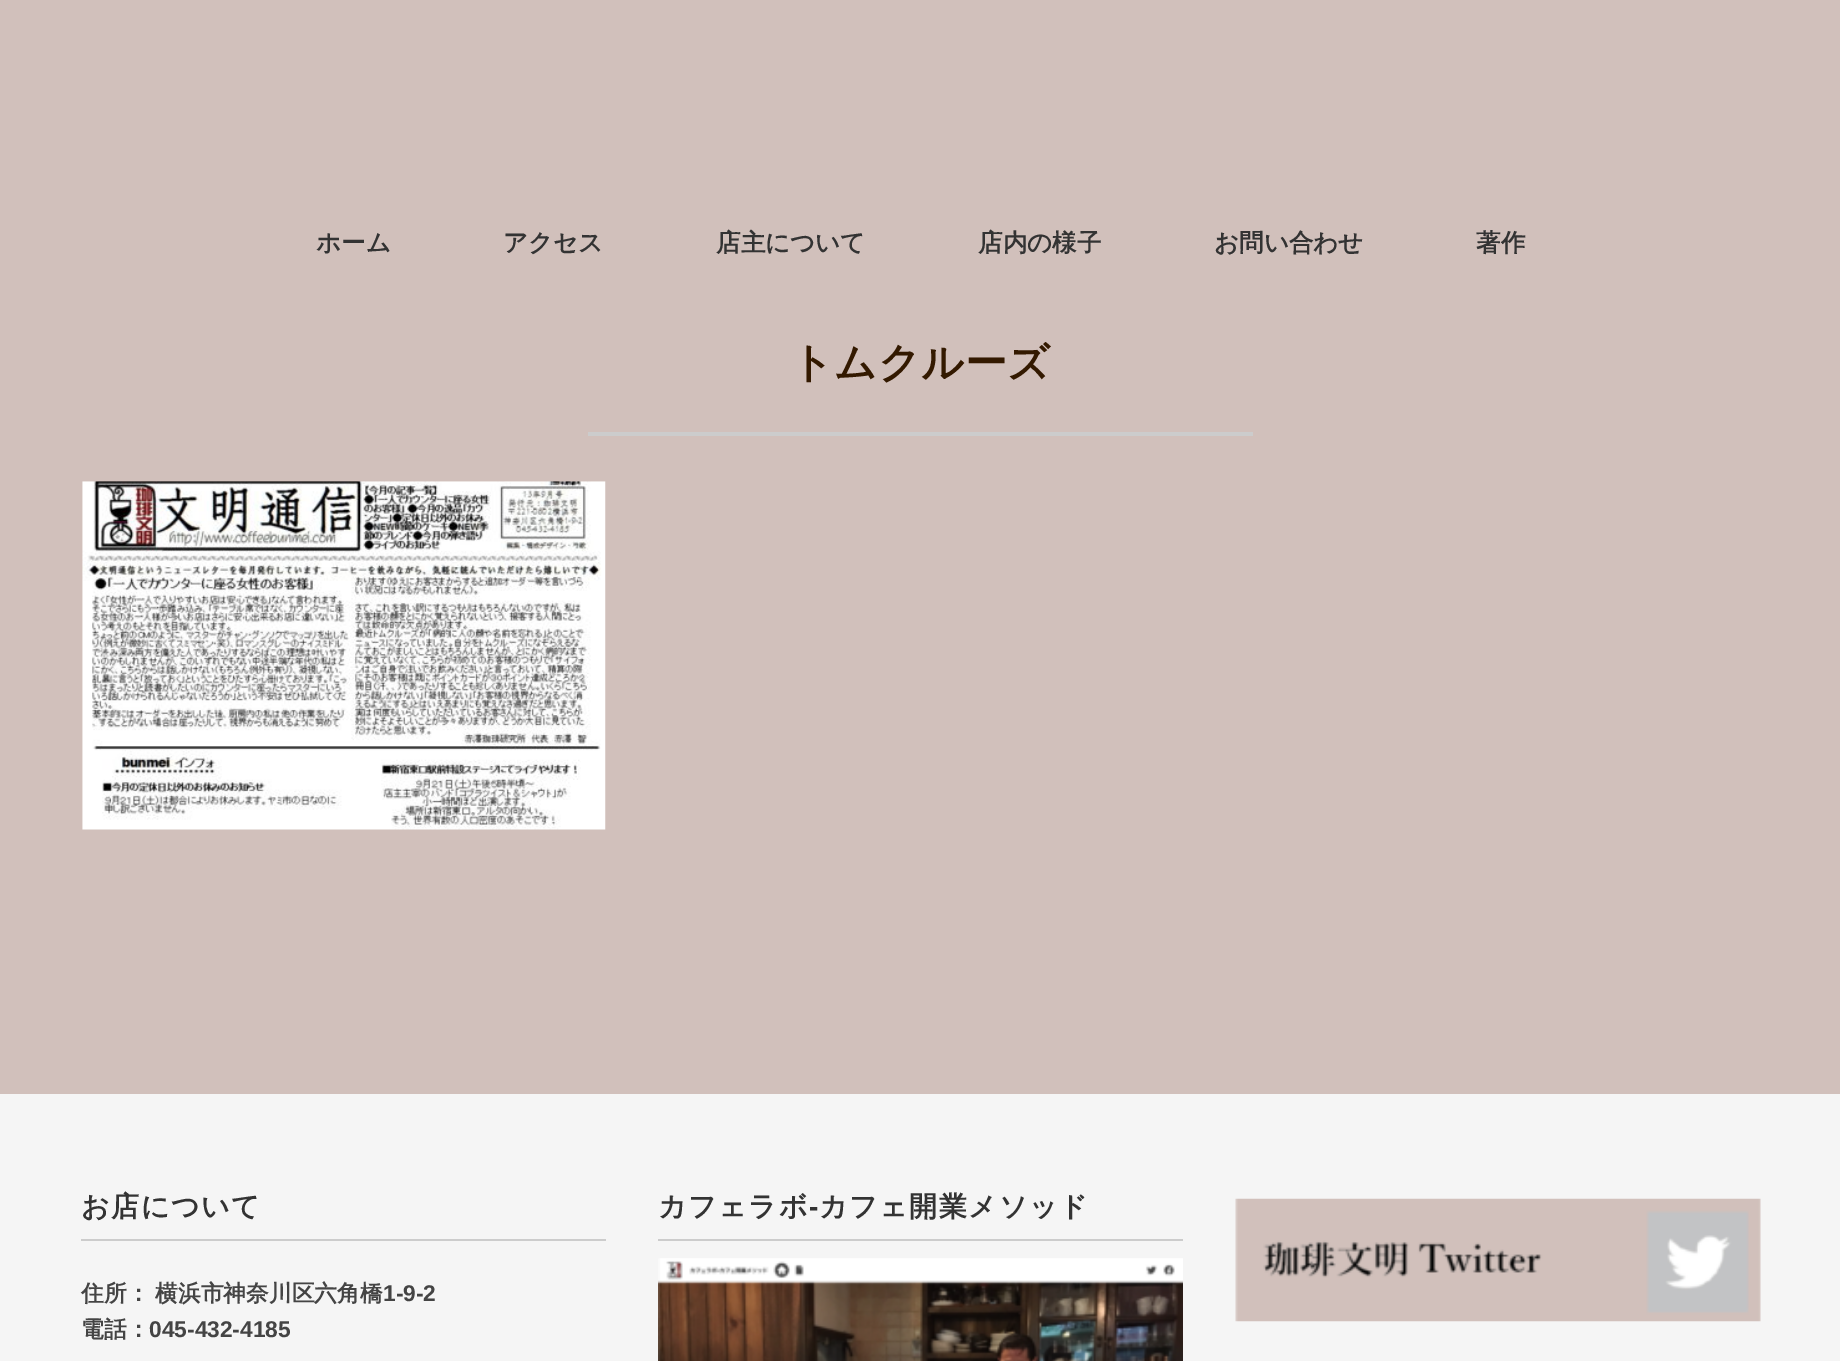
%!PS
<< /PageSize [1840 1361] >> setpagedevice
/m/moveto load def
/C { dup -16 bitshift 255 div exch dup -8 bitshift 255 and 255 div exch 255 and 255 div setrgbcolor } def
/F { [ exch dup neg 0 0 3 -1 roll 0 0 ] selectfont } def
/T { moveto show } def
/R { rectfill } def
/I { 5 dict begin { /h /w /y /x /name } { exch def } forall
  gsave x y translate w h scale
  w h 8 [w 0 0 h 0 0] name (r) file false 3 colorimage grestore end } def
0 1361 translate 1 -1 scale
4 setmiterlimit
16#D1C0BB C
0 0 1840 1361 R
/WenQuanYiZenHei-Bold 24.5 F
16#333333 C
(ホーム) 316 251 T
(アクセス) 503 251 T
(店主について) 716 251 T
(店内の様子) 978 251 T
(お問い合わせ) 1214 251 T
(著作) 1476 251 T
16#CCCCCC C
588 432 665 4 R
/WenQuanYiZenHei-Bold 42 F
16#331900 C
791 377 m .5 0 (トムクルーズ) ashow
(1.rgb) 82 481 524 349 I
16#F5F5F5 C
0 1094 1840 267 R
16#CCCCCC C
81 1239 525 2 R
/WenQuanYiZenHei-Bold 28 F
16#333333 C
81 1216 m 1.5 0 (お店について) ashow
/WenQuanYiZenHei-Bold 22.75 F
16#444444 C
(住所：) 81 1301 T
(横浜市神奈川区六角橋) 155 1301 T
/LiberationSans-Bold 22.75 F
(1-9-2) 383 1301 T
/WenQuanYiZenHei-Bold 22.75 F
(電話：) 81 1337 T
/LiberationSans-Bold 22.75 F
(045-432-4185) 149 1337 T
16#CCCCCC C
658 1239 525 2 R
/WenQuanYiZenHei-Bold 28 F
16#333333 C
658 1216 m 1.5 0 (カフェラボ) ashow
/LiberationSans-Bold 28 F
809 1216 m 1.5 0 (-) ashow
/WenQuanYiZenHei-Bold 28 F
819 1216 m 1.5 0 (カフェ開業メソッド) ashow
(2.rgb) 658 1258 525 103 I
(3.rgb) 1235 1198 526 124 I
showpage
